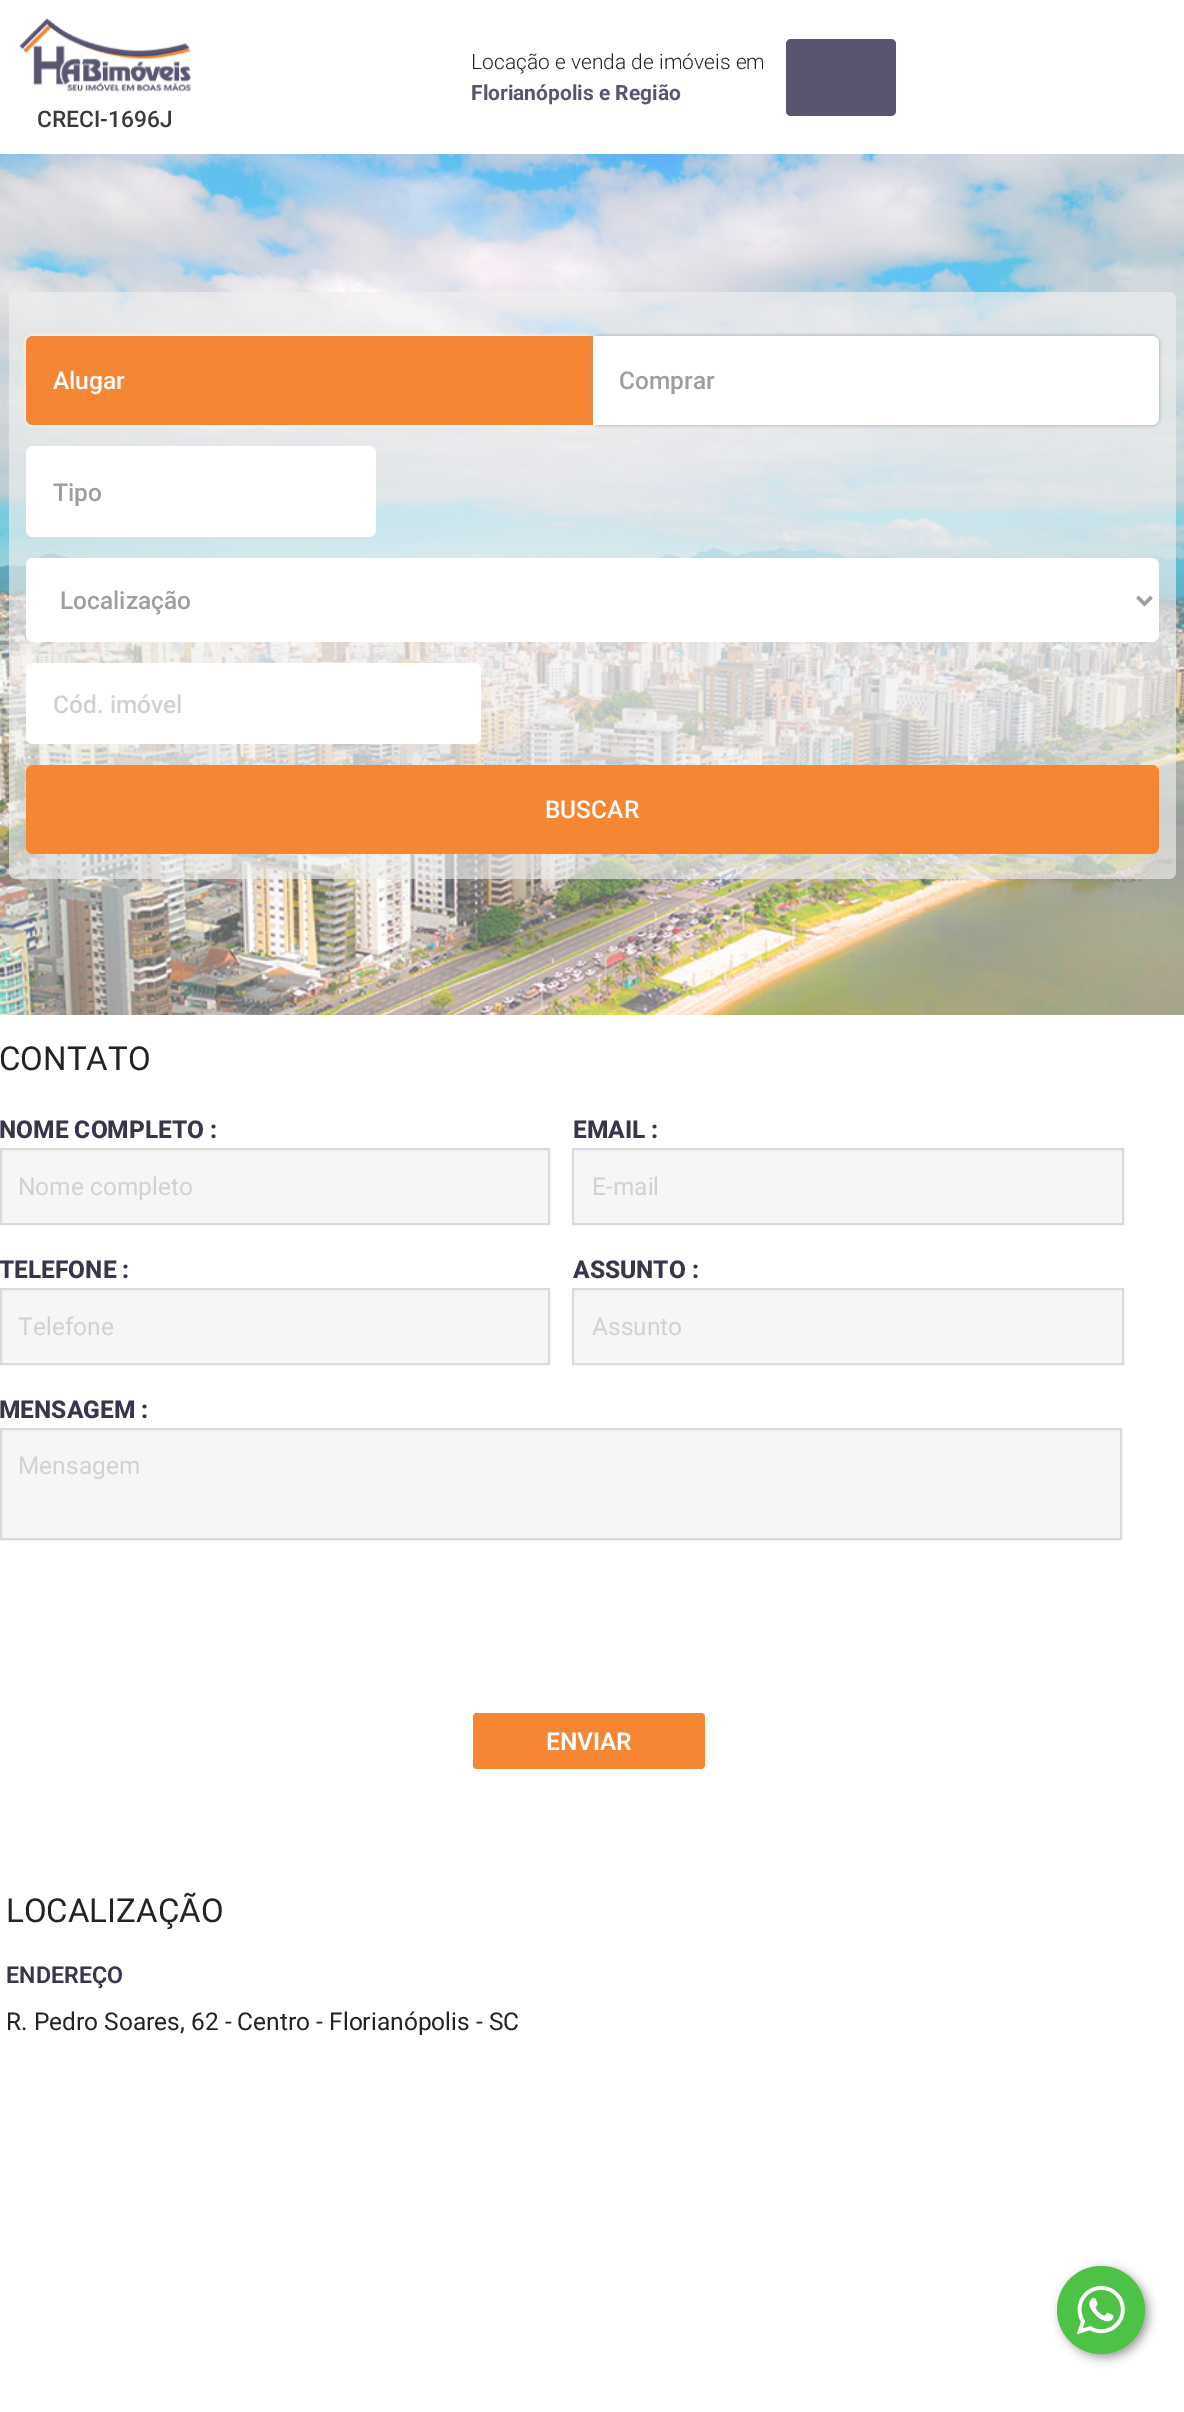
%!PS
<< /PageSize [1184 2412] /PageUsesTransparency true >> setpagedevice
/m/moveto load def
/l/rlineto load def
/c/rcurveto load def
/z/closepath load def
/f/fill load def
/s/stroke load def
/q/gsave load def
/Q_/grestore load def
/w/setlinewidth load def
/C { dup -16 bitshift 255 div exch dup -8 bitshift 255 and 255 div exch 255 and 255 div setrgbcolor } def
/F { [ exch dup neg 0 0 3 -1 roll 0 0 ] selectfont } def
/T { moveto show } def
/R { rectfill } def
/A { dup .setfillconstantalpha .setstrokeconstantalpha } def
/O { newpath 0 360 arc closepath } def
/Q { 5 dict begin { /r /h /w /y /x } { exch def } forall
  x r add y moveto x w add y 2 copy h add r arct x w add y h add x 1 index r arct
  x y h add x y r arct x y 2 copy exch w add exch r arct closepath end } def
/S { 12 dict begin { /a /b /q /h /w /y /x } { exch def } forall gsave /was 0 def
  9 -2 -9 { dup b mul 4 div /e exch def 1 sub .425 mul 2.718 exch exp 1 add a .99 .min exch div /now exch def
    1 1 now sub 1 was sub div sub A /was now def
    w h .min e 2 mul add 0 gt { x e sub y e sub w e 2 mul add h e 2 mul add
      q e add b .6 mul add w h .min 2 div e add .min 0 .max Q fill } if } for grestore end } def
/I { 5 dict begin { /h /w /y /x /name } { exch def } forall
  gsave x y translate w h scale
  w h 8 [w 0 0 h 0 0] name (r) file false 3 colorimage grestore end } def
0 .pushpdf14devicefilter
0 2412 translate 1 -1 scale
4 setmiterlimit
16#FFFFFF C
0 0 1184 2412 R
/Roboto-Light 21 F
16#242323 C
(Locação e venda de imóveis em) 471 69 T
/Roboto-Bold 21 F
16#585570 C
(Florianópolis e Região) 471 100 T
786 39 110 77 5 Q f
(1.rgb) 19 18 172 74 I
/Roboto-Medium 22.75 F
16#3A3A3A C
(CRECI-1696J) 37 127 T
(2.rgb) 0 154 1184 861 I
0.64 A
16#EFEFEF C
9 292 1167 587 7 Q f
1 A
16#FFFFFF C
26 336 567 89 7 2 1 S
16#F58634 C
33 336 m 560 0 l 0 89 l -560 0 l -4 0 -7 -3 -7 -7 c 0 -75 l 0 -4 3 -7 7 -7 c z f
/Roboto-Medium 24.5 F
16#FFFFFF C
(Alugar) 53 389 T
16#9E9E9E C
593 336 566 89 7 2 1 S
16#FFFFFF C
593 336 m 559 0 l 4 0 7 3 7 7 c 0 75 l 0 4 -3 7 -7 7 c -559 0 l z f
16#9E9E9E C
(Comprar) 619 389 T
16#FFFFFF C
26 446 350 91 7 Q f
16#9E9E9E C
(Tipo) 53 501 T
16#FFFFFF C
26 558 1133 84 7 Q f
16#9E9E9E C
3.5 w
1137.5 597 m 7 7 l 7 -7 l s
(Localização) 60 609 T
16#FFFFFF C
26 663 455 81 7 Q f
16#D1D1D1 C
(Cód. imóvel) 53 713 T
16#F58634 C
26 765 1133 89 7 Q f
16#FFFFFF C
(BUSCAR) 545 818 T
/Roboto-Regular 33 F
16#242323 C
(CONTATO) -1 1070 T
/Roboto-ExtraBold 24.5 F
16#38354D C
(NOME COMPLETO :) -1 1138 T
16#F6F6F6 C
1 1149 m 548 0 l 0 75 l -548 0 l z q f Q_
16#DADADA C
2 w
s
/Roboto-Regular 24.5 F
16#D1D1D1 C
(Nome completo) 18 1195 T
/Roboto-ExtraBold 24.5 F
16#38354D C
(EMAIL :) 573 1138 T
16#F6F6F6 C
573 1149 m 550 0 l 0 75 l -550 0 l z q f Q_
16#DADADA C
s
/Roboto-Regular 24.5 F
16#D1D1D1 C
(E-mail) 592 1195 T
/Roboto-ExtraBold 24.5 F
16#38354D C
(TELEFONE :) -1 1278 T
16#F6F6F6 C
1 1289 m 548 0 l 0 75 l -548 0 l z q f Q_
16#DADADA C
s
/Roboto-Regular 24.5 F
16#D1D1D1 C
(Telefone) 18 1335 T
/Roboto-ExtraBold 24.5 F
16#38354D C
(ASSUNTO :) 573 1278 T
16#F6F6F6 C
573 1289 m 550 0 l 0 75 l -550 0 l z q f Q_
16#DADADA C
s
/Roboto-Regular 24.5 F
16#D1D1D1 C
(Assunto) 592 1335 T
/Roboto-ExtraBold 24.5 F
16#38354D C
(MENSAGEM :) -1 1418 T
16#F6F6F6 C
1 1429 m 1120 0 l 0 110 l -1120 0 l z q f Q_
16#DADADA C
s
/Roboto-Regular 24.5 F
16#D1D1D1 C
(Mensagem) 18 1474 T
16#F58634 C
473 1713 232 56 4 Q f
/Roboto-SemiBold 24.5 F
16#FFFFFF C
(ENVIAR) 546 1750 T
/Roboto-Regular 33 F
16#242323 C
(LOCALIZAÇÃO) 6 1922 T
/Roboto-SemiBold 23.25 F
16#38354D C
(ENDEREÇO) 6 1983 T
/Roboto-Regular 24.5 F
16#242323 C
(R. Pedro Soares, 62 - Centro - Florianópolis - SC) 6 2030 T
16#000000 C
1061 2270 87 87 43.5 5 .4 S
16#4DC247 C
1101 2310 44 O f
(3.rgb) 1076 2285 49 50 I
.poppdf14devicefilter showpage
